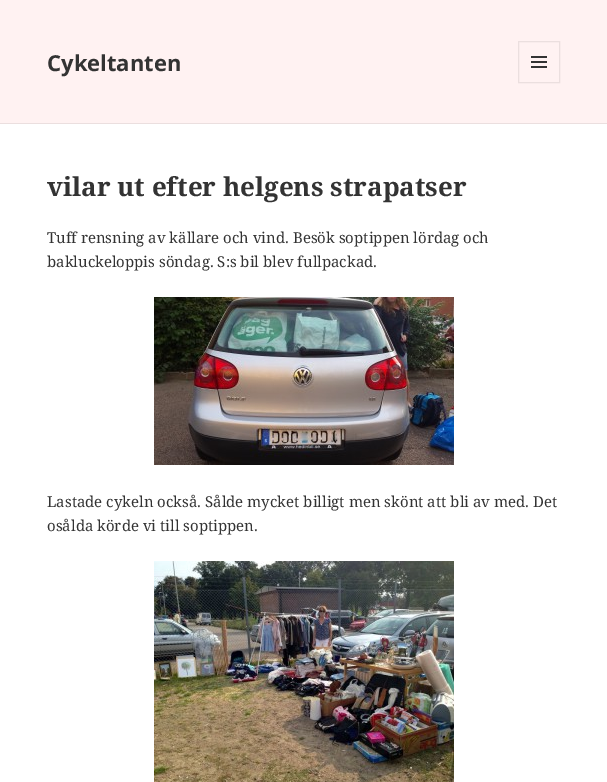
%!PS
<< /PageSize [607 782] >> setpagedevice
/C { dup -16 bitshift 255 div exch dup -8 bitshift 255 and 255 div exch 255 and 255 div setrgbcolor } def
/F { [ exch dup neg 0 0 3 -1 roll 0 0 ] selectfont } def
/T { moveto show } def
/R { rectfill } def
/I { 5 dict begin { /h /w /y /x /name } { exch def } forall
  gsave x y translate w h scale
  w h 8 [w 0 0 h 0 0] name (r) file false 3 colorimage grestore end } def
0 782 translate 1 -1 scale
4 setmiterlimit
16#FFF2F2 C
0 0 607 782 R
16#EBDFDF C
0 123 607 1 R
/NotoSans-Bold 22 F
16#333333 C
(Cykeltanten) 47 71 T
16#EBDFDF C
518.5 41.5 41 41 rectstroke
(1.rgb) 531 56 16 12 I
16#FFFFFF C
0 124 607 658 R
/NotoSerif-Bold 26 F
16#333333 C
(vilar ut efter helgens strapatser) 47 196 T
/NotoSerif-Regular 15 F
(Tuff rensning av källare och vind. Besök soptippen lördag och) 47 243 T
(bakluckeloppis söndag. S:s bil blev fullpackad.) 47 267 T
(2.rgb) 154 297 300 168 I
(Lastade cykeln också. Sålde mycket billigt men skönt att bli av med. Det) 47 507 T
(osålda körde vi till soptippen.) 47 531 T
(3.rgb) 154 561 300 221 I
showpage
